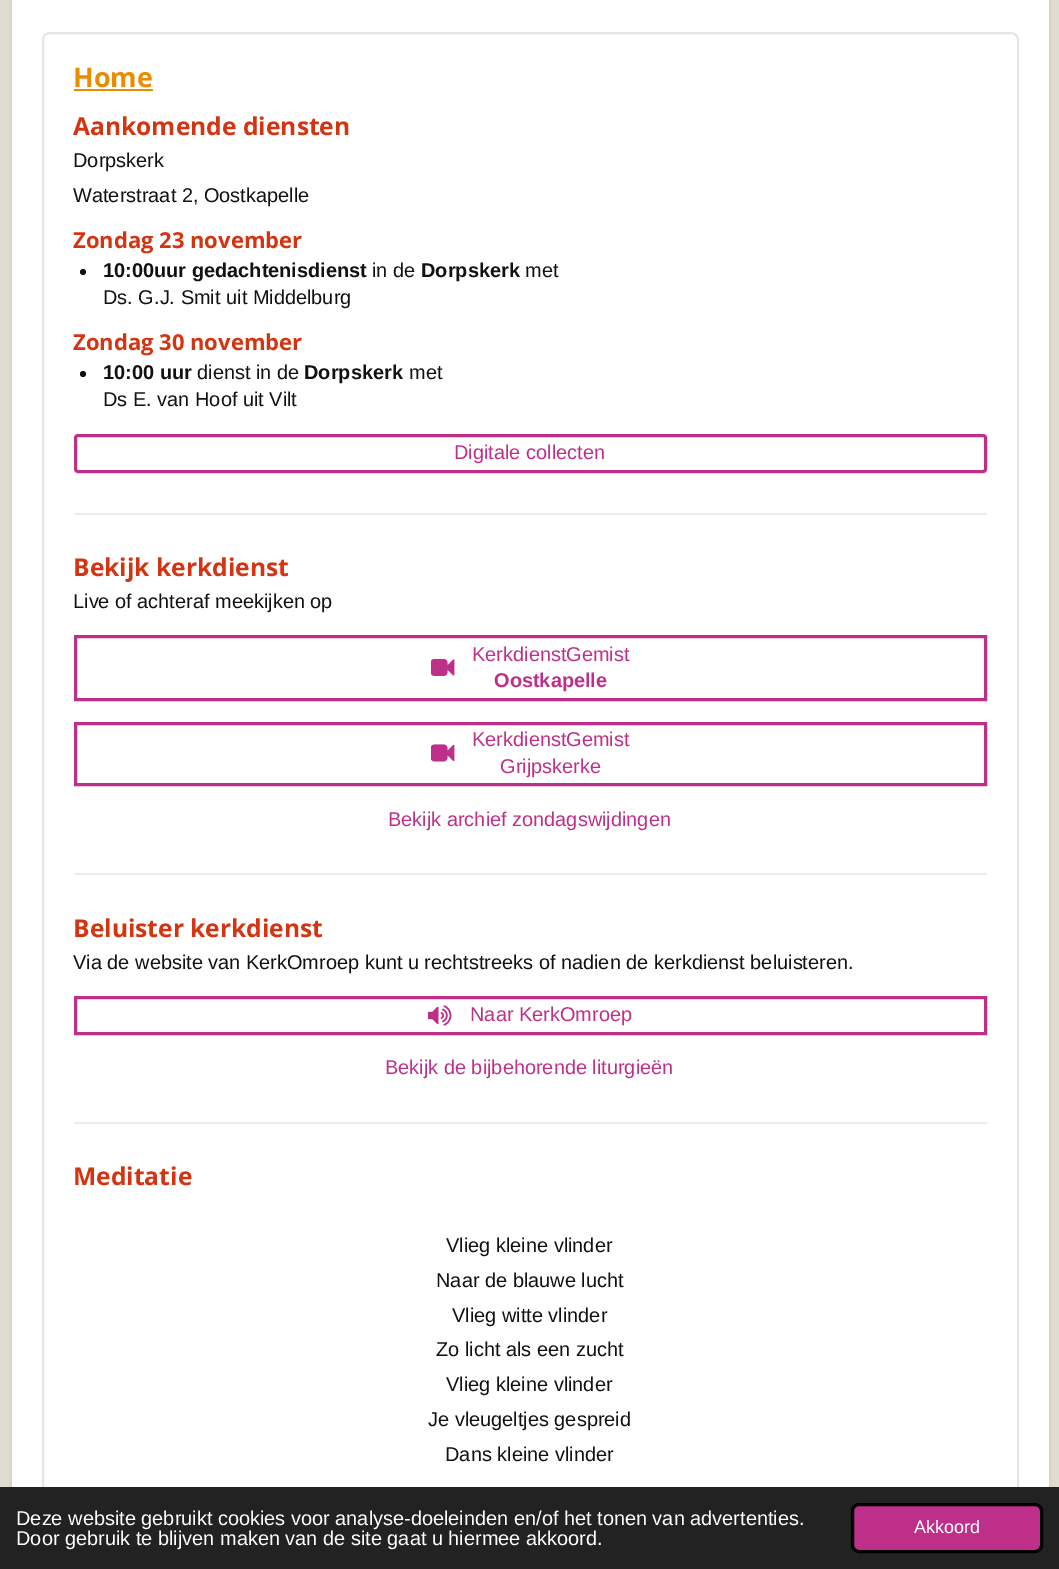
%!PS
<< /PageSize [1059 1569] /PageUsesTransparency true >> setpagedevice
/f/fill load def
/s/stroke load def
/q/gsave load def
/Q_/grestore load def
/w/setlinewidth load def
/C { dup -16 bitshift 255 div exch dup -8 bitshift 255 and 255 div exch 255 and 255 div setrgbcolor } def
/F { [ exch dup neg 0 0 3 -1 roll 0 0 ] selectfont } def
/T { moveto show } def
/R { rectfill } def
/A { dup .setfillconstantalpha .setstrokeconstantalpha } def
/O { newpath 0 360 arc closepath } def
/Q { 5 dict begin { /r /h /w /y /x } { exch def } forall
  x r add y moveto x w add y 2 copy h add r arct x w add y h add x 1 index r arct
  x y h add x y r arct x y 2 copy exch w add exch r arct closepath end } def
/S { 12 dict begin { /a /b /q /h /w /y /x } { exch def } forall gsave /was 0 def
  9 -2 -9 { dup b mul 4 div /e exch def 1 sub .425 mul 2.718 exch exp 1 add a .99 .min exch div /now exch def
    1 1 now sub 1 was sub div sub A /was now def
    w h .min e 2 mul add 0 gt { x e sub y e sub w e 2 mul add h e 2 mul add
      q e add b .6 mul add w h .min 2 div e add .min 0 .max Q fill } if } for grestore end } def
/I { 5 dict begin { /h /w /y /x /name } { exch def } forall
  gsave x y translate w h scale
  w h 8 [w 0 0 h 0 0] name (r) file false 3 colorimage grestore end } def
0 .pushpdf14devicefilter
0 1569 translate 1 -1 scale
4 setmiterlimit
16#DFDDD1 C
0 0 1059 1569 R
16#000000 C
12 -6 1037 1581 0 2 .1 S
16#FFFFFF C
12 0 1037 1487 R
16#E6E6E6 C
2 w
43 33 975 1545 7 Q s
/OpenSans-Bold 27 F
16#EA8C00 C
(Home) 73 87 T
74 89 79 2 R
/OpenSans-Bold 24.6 F
16#D33411 C
(Aankomende diensten) 73 135 T
/LiberationSans-Regular 19.95 F
16#111111 C
(Dorpskerk) 73 167 T
(Waterstraat 2, Oostkapelle) 73 202 T
/OpenSans-Bold 22 F
16#D33411 C
(Zondag 23 november) 73 248 T
16#111111 C
83 272 3 O f
/LiberationSans-Bold 19.95 F
(10:00uur gedachtenisdienst) 103 277 T
/LiberationSans-Regular 19.95 F
(in de) 372 277 T
/LiberationSans-Bold 19.95 F
(Dorpskerk) 421 277 T
/LiberationSans-Regular 19.95 F
(met) 525 277 T
(Ds. G.J. Smit uit Middelburg) 103 304 T
/OpenSans-Bold 22 F
16#D33411 C
(Zondag 30 november) 73 350 T
16#111111 C
83 374 3 O f
/LiberationSans-Bold 19.95 F
(10:00 uur) 103 379 T
/LiberationSans-Regular 19.95 F
(dienst in de) 197 379 T
/LiberationSans-Bold 19.95 F
(Dorpskerk) 304 379 T
/LiberationSans-Regular 19.95 F
(met) 409 379 T
(Ds E. van Hoof uit Vilt) 103 406 T
16#BD2F89 C
3 w
75.5 435.5 910 36 2.5 Q s
(Digitale collecten) 454 459 T
16#ECECEC C
74 513 913 2 R
/OpenSans-Bold 24.6 F
16#D33411 C
(Bekijk kerkdienst) 73 576 T
/LiberationSans-Regular 19.95 F
16#111111 C
(Live of achteraf meekijken op) 73 608 T
16#BD2F89 C
75.5 636.5 910 63 rectstroke
(1.rgb) 431 658 24 18 I
(KerkdienstGemist) 472 661 T
/LiberationSans-Bold 19.95 F
(Oostkapelle) 494 687 T
75.5 723.5 910 61 rectstroke
(2.rgb) 431 744 24 18 I
/LiberationSans-Regular 19.95 F
(KerkdienstGemist) 472 746 T
(Grijpskerke) 500 773 T
(Bekijk archief zondagswijdingen) 388 826 T
16#ECECEC C
74 873 913 2 R
/OpenSans-Bold 24.6 F
16#D33411 C
(Beluister kerkdienst) 73 937 T
/LiberationSans-Regular 19.95 F
16#111111 C
(Via de website van KerkOmroep kunt u rechtstreeks of nadien de kerkdienst beluisteren.) 73 969 T
16#BD2F89 C
75.5 997.5 910 36 rectstroke
(3.rgb) 428 1005 24 21 I
(Naar KerkOmroep) 470 1021 T
(Bekijk de bijbehorende liturgieën) 385 1074 T
16#ECECEC C
74 1122 913 2 R
/OpenSans-Bold 24.6 F
16#D33411 C
(Meditatie) 73 1185 T
/LiberationSans-Regular 19.95 F
16#111111 C
(Vlieg kleine vlinder) 446 1252 T
(Naar de blauwe lucht) 436 1287 T
(Vlieg witte vlinder) 452 1322 T
(Zo licht als een zucht) 436 1356 T
(Vlieg kleine vlinder) 446 1391 T
(Je vleugeltjes gespreid) 428 1426 T
(Dans kleine vlinder) 445 1461 T
16#222222 C
0 1487 1059 82 R
16#FFFFFF C
(Deze website gebruikt cookies voor analyse-doeleinden en/of het tonen van advertenties.) 16 1525 T
(Door gebruik te blijven maken van de site gaat u hiermee akkoord.) 16 1545 T
16#BD2F89 C
852.5 1504.5 189 47 6.5 Q q f Q_
16#000000 C
s
/LiberationSans-Regular 18 F
16#FFFFFF C
(Akkoord) 914 1533 T
.poppdf14devicefilter showpage
